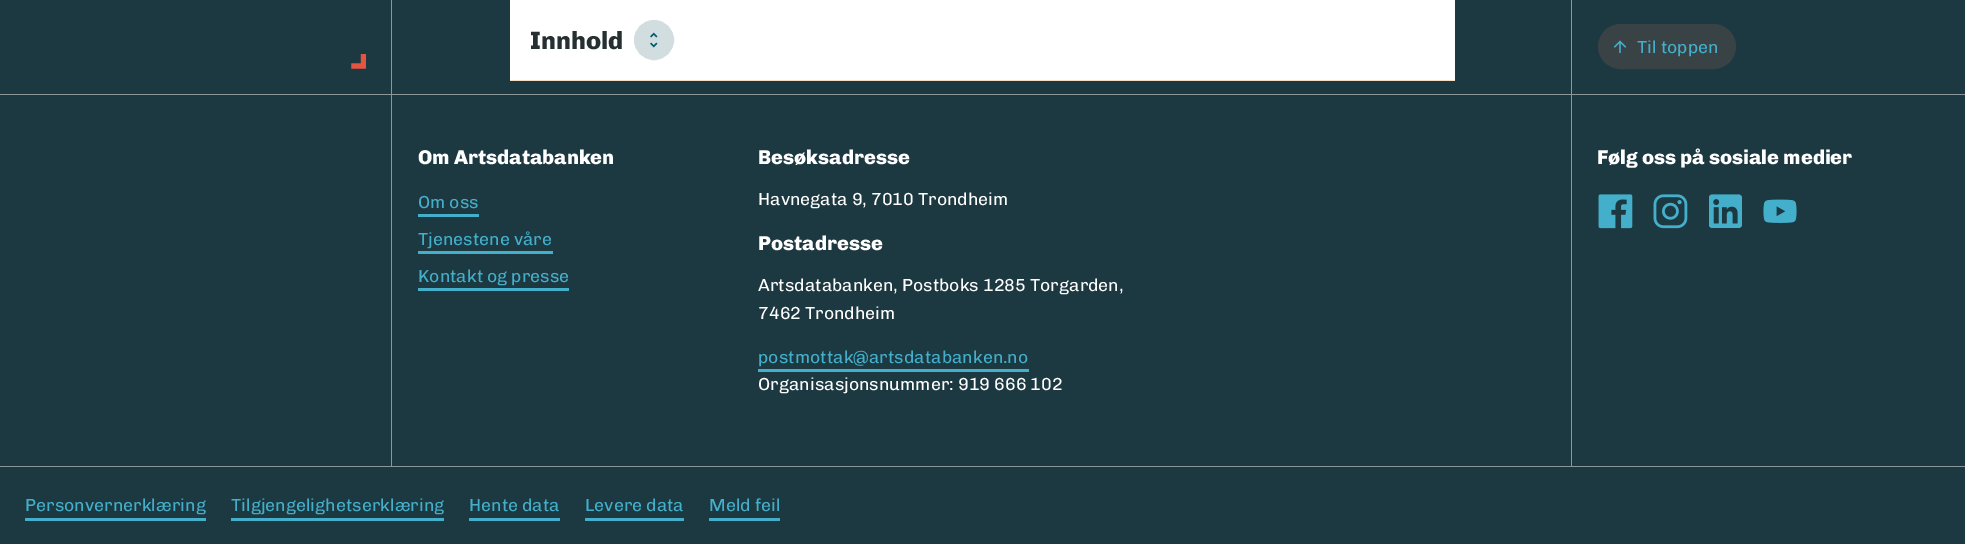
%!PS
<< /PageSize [1965 544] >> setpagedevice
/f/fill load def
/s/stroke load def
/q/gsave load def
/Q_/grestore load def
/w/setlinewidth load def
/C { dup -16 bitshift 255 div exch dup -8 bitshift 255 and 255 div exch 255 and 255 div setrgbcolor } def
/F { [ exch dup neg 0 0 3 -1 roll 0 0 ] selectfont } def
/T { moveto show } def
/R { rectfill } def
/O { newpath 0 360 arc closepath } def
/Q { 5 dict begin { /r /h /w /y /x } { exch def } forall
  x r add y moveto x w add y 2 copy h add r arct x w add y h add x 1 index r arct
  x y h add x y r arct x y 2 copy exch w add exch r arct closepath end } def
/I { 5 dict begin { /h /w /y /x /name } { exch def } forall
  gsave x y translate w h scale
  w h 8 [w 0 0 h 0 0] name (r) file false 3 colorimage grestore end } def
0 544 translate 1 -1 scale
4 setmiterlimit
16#1C3840 C
0 0 1965 544 R
16#FFFFFF C
510 0 945 80 R
/Chivo-ExtraBold 25 F
16#262F31 C
(Innhold) 530 49 T
16#D2DDE0 C
654 40 18.5 O q f Q_
3 w
s
(1.rgb) 650 32 8 16 I
16#F2DFC5 C
510 80 945 1 R
16#8C9799 C
0 94 1965 1 R
391 0 1 466 R
1571 0 1 94 R
16#394244 C
1599.5 25.5 135 42 21 Q q f Q_
s
(2.rgb) 1613 40 14 13 I
/Chivo-Regular 17.5 F
16#44AFCB C
(Til toppen) 1637 53 T
(3.rgb) 351 54 15 15 I
16#8C9799 C
1571 94 1 372 R
/Chivo-ExtraBold 20 F
16#FFFFFF C
(Om Artsdatabanken) 418 164 T
/Chivo-Regular 17.5 F
16#44AFCB C
(Om oss) 418 208 T
418 214 61 3 R
(Tjenestene våre) 418 245 T
418 251 135 3 R
(Kontakt og presse) 418 282 T
418 288 151 3 R
/Chivo-ExtraBold 20 F
16#FFFFFF C
(Besøksadresse) 758 164 T
/Chivo-Regular 17.5 F
(Havnegata 9, 7010 Trondheim) 758 205 T
/Chivo-ExtraBold 20 F
(Postadresse) 758 250 T
/Chivo-Regular 17.5 F
(Artsdatabanken, Postboks 1285 Torgarden,) 758 291 T
(7462 Trondheim) 758 319 T
16#44AFCB C
(postmottak@artsdatabanken.no) 758 363 T
758 369 271 3 R
16#FFFFFF C
(Organisasjonsnummer: 919 666 102) 758 390 T
/Chivo-ExtraBold 20 F
(Følg oss på sosiale medier) 1597 164 T
(4.rgb) 1598 194 35 35 I
(5.rgb) 1653 194 35 35 I
(6.rgb) 1709 194 33 34 I
(7.rgb) 1763 199 34 24 I
16#8C9799 C
0 466 1965 1 R
/Chivo-Regular 17.5 F
16#44AFCB C
(Personvernerklæring) 25 511 T
25 518 181 3 R
(Tilgjengelighetserklæring) 231 511 T
231 518 213 3 R
(Hente data) 469 511 T
469 518 91 3 R
(Levere data) 585 511 T
585 518 99 3 R
(Meld feil) 709 511 T
709 518 71 3 R
showpage
